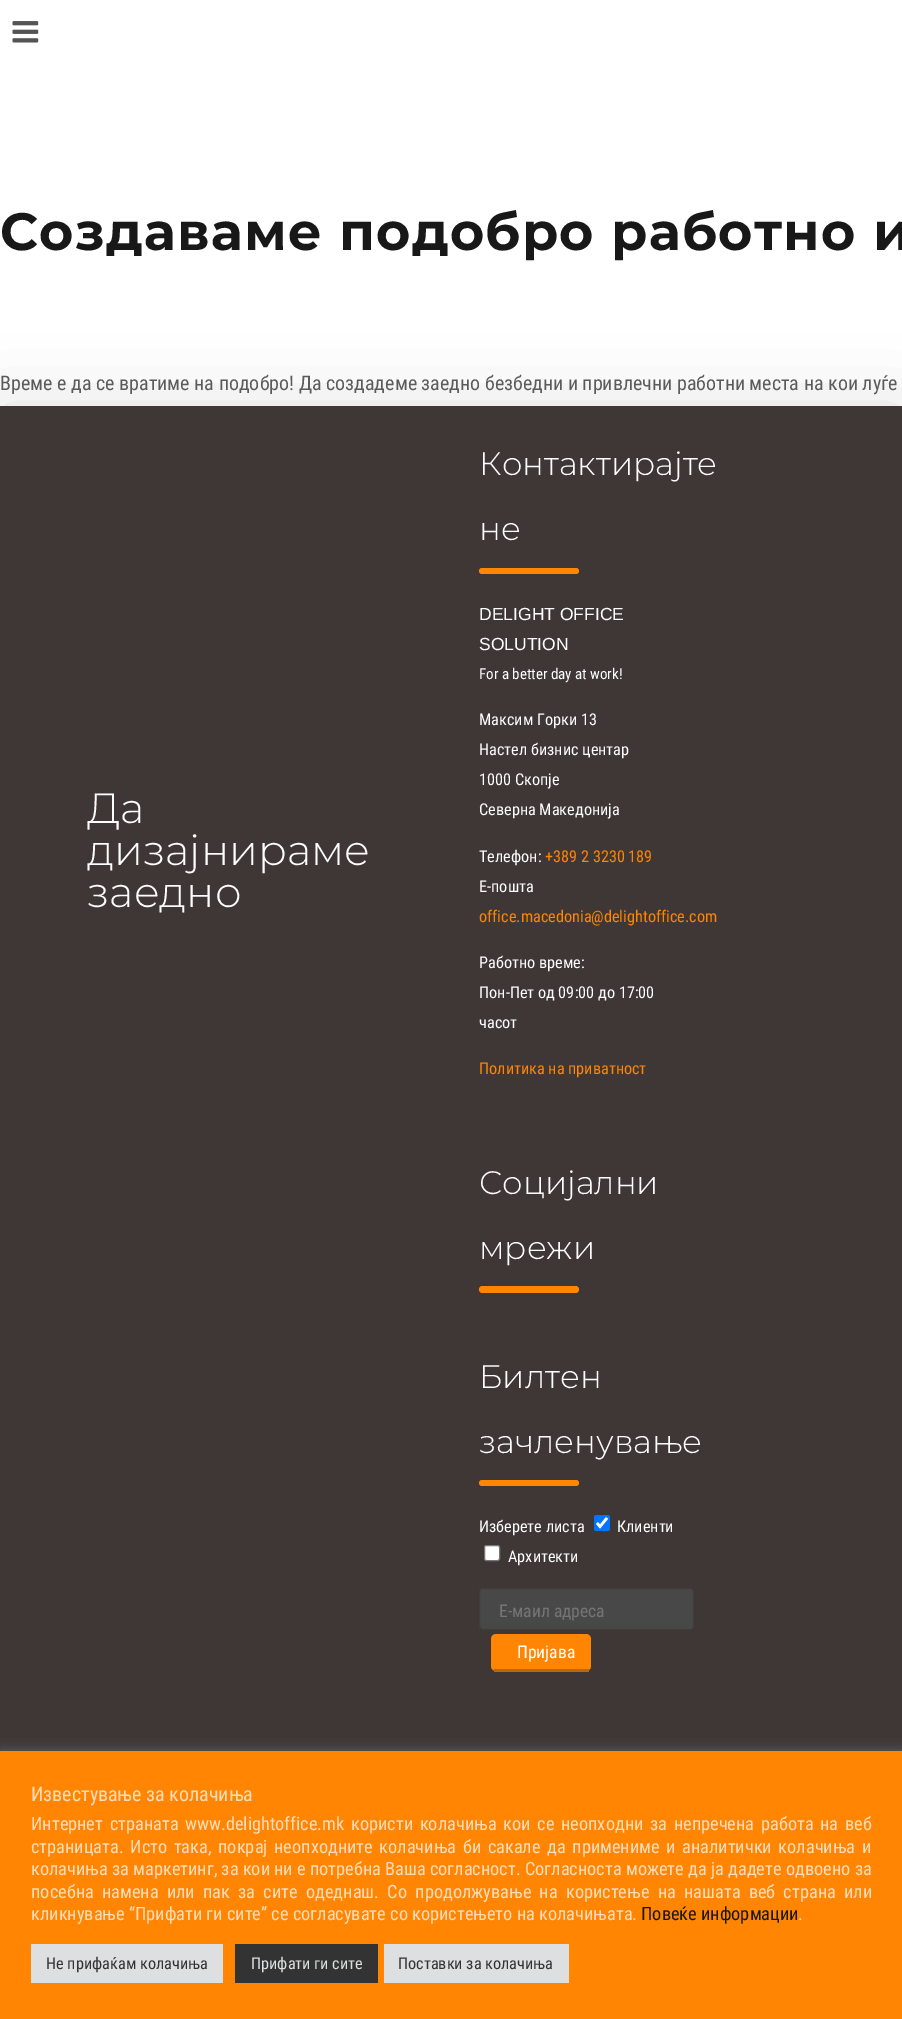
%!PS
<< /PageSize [902 2019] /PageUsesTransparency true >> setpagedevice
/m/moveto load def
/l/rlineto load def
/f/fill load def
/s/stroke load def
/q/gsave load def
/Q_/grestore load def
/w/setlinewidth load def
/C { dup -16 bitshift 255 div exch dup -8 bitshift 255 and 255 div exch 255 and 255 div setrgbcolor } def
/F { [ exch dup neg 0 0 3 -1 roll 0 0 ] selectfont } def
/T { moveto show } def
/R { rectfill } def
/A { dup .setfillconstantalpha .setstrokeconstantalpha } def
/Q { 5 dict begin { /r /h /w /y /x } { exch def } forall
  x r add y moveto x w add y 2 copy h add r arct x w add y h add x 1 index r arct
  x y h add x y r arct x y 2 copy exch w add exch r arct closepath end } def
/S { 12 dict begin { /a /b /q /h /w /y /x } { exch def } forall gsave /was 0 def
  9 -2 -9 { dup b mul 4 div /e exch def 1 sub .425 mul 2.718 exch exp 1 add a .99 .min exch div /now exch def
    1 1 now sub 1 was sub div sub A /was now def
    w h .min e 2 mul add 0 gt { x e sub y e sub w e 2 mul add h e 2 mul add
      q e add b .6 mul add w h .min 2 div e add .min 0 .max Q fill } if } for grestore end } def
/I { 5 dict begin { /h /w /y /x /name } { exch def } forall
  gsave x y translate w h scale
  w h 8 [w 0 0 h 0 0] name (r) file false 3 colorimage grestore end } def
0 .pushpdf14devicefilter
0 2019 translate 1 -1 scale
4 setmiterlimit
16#FFFFFF C
0 0 902 2019 R
(1.rgb) 12 21 27 22 I
/Montserrat-Bold 52.5 F
16#181818 C
0 250 m 1.25 0 (Создаваме подобро работно и) ashow
0 409 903 1352 0 34.5 .15 S
/RobotoCondensed-Regular 20 F
16#5B5B5B C
(Време е да се вратиме на подобро! Да создадеме заедно безбедни и привлечни работни места на кои луѓе) 0 390 T
16#3F3735 C
0 406 902 1345 R
/Montserrat-Light 42.25 F
16#FFFFFF C
(Да) 87 823 T
(дизајнираме) 87 865 T
(заедно) 87 907 T
/Montserrat-Light 32.5 F
(Контактирајте) 479 475 T
(не) 479 540 T
16#FF8503 C
479 568 100 6 3 Q f
/LiberationSans-Regular 17.5 F
16#FFFFFF C
(DELIGHT OFFICE) 479 620 T
(SOLUTION) 479 650 T
/RobotoCondensed-Regular 15 F
(For a better day at work!) 479 679 T
/RobotoCondensed-Regular 16.25 F
(Mаксим Горки 13) 479 725 T
(Настел бизнис центар) 479 755 T
(1000 Скопје) 479 785 T
(Северна Македонија) 479 815 T
(Телефон:) 479 862 T
16#FF8503 C
(+389 2 3230 189) 545 862 T
16#FFFFFF C
(Е-пошта) 479 892 T
16#FF8503 C
(office.macedonia@delightoffice.com) 479 922 T
16#FFFFFF C
(Работно време:) 479 968 T
(Пон-Пет од 09:00 до 17:00) 479 998 T
(часот) 479 1028 T
16#FF8503 C
(Политика на приватност) 479 1074 T
/Montserrat-Light 32.5 F
16#FFFFFF C
(Социјални) 479 1194 T
(мрежи) 479 1259 T
16#FF8503 C
479 1286 100 7 3.5 Q f
16#FFFFFF C
(Билтен) 479 1388 T
(зачленување) 479 1453 T
16#FF8503 C
479 1480 100 6 3 Q f
/RobotoCondensed-Regular 16.25 F
16#FFFFFF C
(Изберете листа) 479 1532 T
16#0075FF C
594 1515 16 16 2.5 Q f
16#FFFFFF C
2.6 w
597 1523 m 3 3.5 l 7 -8.5 l s
(Клиенти) 617 1532 T
484.5 1545.5 15 15 2 Q q f Q_
16#767676 C
1 w
s
16#FFFFFF C
(Архитекти) 508 1562 T
16#484848 C
479.5 1588.5 214 41 3.5 Q q f Q_
16#3D3D3D C
s
/RobotoCondensed-Regular 17.5 F
16#757575 C
(Е-маил адреса) 499 1617 T
16#FF8503 C
491 1634 100 37 5 Q f
16#BC6518 C
494 1669 95 3 R
16#FFFFFF C
(Пријава) 517 1658 T
16#ACABAB C
0 1750 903 269 0 6 .3 S
16#FF8503 C
0 1751 902 268 R
/RobotoCondensed-Regular 20 F
16#FFDDBC C
(Известување за колачиња) 31 1801 T
/RobotoCondensed-Regular 18.35 F
31 1830 m 2.5 0 32 (Интернет страната www.delightoffice.mk користи колачиња кои се неопходни за непречена работа на веб) widthshow
31 1853 m 2.4 0 32 (страницата. Исто така, покрај неопходните колачиња би сакале да примениме и аналитички колачиња и) widthshow
(колачиња за маркетинг, за кои ни е потребна Ваша согласност. Согласноста можете да ја дадете одвоено за) 31 1875 T
31 1898 m 4 0 32 (посебна намена или пак за сите одеднаш. Со продолжување на користење на нашата веб страна или) widthshow
(кликнување “Прифати ги сите” се согласувате со користењето на колачињата.) 31 1920 T
16#181818 C
(Повеќе информации) 641 1920 T
16#FFDDBC C
(.) 798 1920 T
16#DEDFE0 C
31 1944 192 39 R
/RobotoCondensed-Regular 16.25 F
16#333333 C
(Не прифаќам колачиња) 46 1969 T
235 1944 143 39 R
16#DEDFE0 C
(Прифати ги сите) 251 1969 T
384 1944 185 39 R
16#333333 C
(Поставки за колачиња) 398 1969 T
.poppdf14devicefilter showpage
